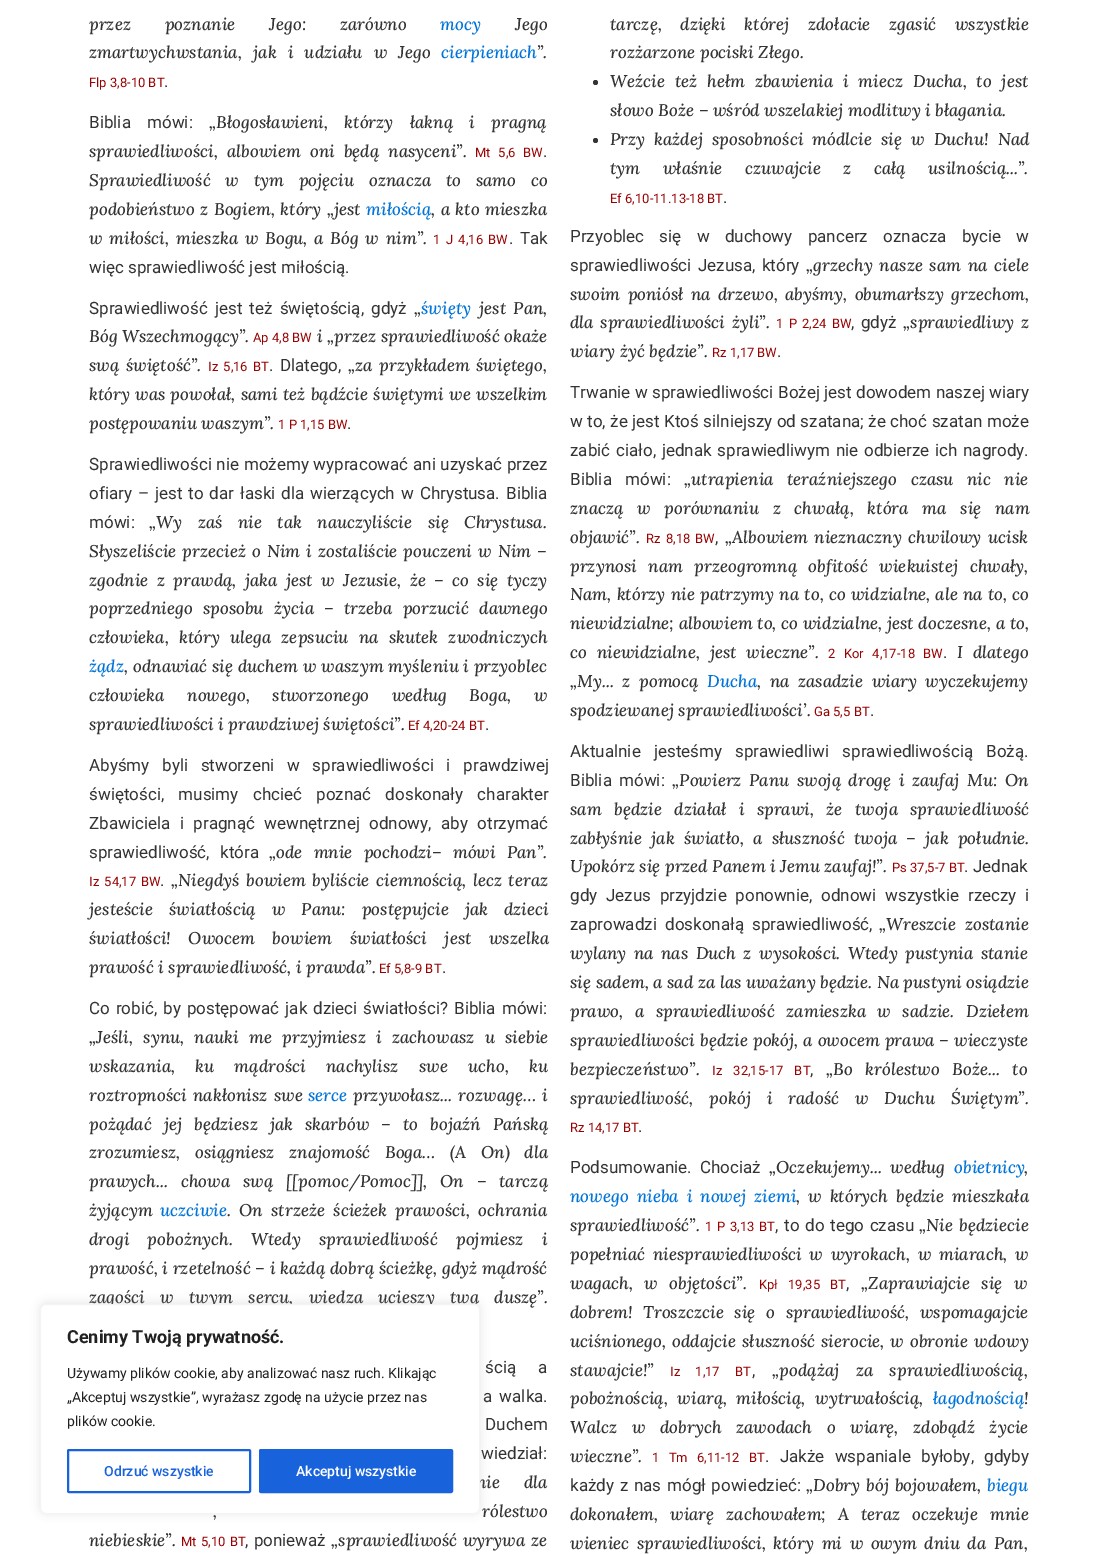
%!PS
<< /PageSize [1117 1554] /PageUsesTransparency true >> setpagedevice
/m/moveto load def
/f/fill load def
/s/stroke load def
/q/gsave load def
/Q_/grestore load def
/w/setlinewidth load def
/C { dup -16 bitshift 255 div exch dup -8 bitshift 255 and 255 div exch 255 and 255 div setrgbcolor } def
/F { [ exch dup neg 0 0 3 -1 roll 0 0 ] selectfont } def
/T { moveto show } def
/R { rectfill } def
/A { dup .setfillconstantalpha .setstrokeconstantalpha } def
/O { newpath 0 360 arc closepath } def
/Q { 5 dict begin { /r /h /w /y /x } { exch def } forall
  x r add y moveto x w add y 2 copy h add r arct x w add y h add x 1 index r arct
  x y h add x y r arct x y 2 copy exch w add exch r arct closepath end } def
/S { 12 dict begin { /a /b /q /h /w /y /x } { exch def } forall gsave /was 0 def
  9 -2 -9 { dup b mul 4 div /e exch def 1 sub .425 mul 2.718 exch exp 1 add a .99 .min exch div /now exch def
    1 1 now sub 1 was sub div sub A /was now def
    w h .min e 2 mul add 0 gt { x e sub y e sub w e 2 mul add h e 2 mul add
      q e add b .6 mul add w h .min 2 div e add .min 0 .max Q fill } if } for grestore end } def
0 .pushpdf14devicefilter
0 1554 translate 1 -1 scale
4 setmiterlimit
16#FFFFFF C
0 0 1117 1554 R
/Lora-MediumItalic 17 F
16#333333 C
89 30 m 29.5 0 32 (przez poznanie Jego: zarówno) widthshow
16#0074D8 C
(mocy) 440 30 T
16#333333 C
(Jego) 515 30 T
89 58 m 6.75 0 32 (zmartwychwstania, jak i udziału w Jego) widthshow
16#0074D8 C
(cierpieniach) 441 58 T
16#333333 C
(”.) 537 58 T
/Roboto-Regular 13 F
16#980101 C
(Flp 3,8-10 BT) 89 87 T
/Roboto-Regular 17 F
16#333333 C
(.) 164 87 T
/Lora-MediumItalic 17 F
610 30 m 14 0 32 (tarczę, dzięki której zdołacie zgasić wszystkie) widthshow
(rozżarzone pociski Złego.) 610 58 T
595.5 82.5 2.5 O f
610 87 m 5.25 0 32 (Weźcie też hełm zbawienia i miecz Ducha, to jest) widthshow
(słowo Boże – wśród wszelakiej modlitwy i błagania.) 610 116 T
595.5 140.5 2.5 O f
610 145 m 4.5 0 32 (Przy każdej sposobności módlcie się w Duchu! Nad) widthshow
610 174 m 18 0 32 (tym właśnie czuwajcie z całą usilnością...”.) widthshow
/Roboto-Regular 13 F
16#980101 C
(Ef 6,10-11.13-18 BT) 610 203 T
/Roboto-Regular 17 F
16#333333 C
(.) 723 203 T
89 128 m 12 0 32 (Biblia mówi:) widthshow
/Lora-MediumItalic 17 F
209 128 m 12 0 32 („Błogosławieni, którzy łakną i pragną) widthshow
89 157 m 4.5 0 32 (sprawiedliwości, albowiem oni będą nasyceni”.) widthshow
/Roboto-Regular 13 F
16#980101 C
475 157 m 4.5 0 32 (Mt 5,6 BW) widthshow
/Roboto-Regular 17 F
16#333333 C
(.) 543 157 T
/Lora-MediumItalic 17 F
89 186 m 10.25 0 32 (Sprawiedliwość w tym pojęciu oznacza to samo co) widthshow
89 215 m 1 0 32 (podobieństwo z Bogiem, który „jest) widthshow
16#0074D8 C
(miłością) 366 215 T
16#333333 C
431 215 m 1 0 32 (, a kto mieszka) widthshow
89 244 m 2.25 0 32 (w miłości, mieszka w Bogu, a Bóg w nim”.) widthshow
/Roboto-Regular 13 F
16#980101 C
433 244 m 2.25 0 32 (1 J 4,16 BW) widthshow
/Roboto-Regular 17 F
16#333333 C
509 244 m 2.25 0 32 (. Tak) widthshow
(więc sprawiedliwość jest miłością.) 89 273 T
570 242 m 11 0 32 (Przyoblec się w duchowy pancerz oznacza bycie w) widthshow
570 271 m 2.25 0 32 (sprawiedliwości Jezusa, który) widthshow
/Lora-MediumItalic 17 F
806 271 m 2.25 0 32 („grzechy nasze sam na ciele) widthshow
570 300 m 2.75 0 32 (swoim poniósł na drzewo, abyśmy, obumarłszy grzechom,) widthshow
/Roboto-Regular 17 F
89 314 m 3 0 32 (Sprawiedliwość jest też świętością, gdyż) widthshow
/Lora-MediumItalic 17 F
(„) 414 314 T
16#0074D8 C
(święty) 421 314 T
16#333333 C
479 314 m 3 0 32 (jest Pan,) widthshow
(Bóg Wszechmogący”.) 89 342 T
/Roboto-Regular 13 F
16#980101 C
(Ap 4,8 BW) 253 342 T
/Lora-MediumItalic 17 F
16#333333 C
(i „przez sprawiedliwość okaże) 317 342 T
89 371 m 2 0 32 (swą świętość”.) widthshow
/Roboto-Regular 13 F
16#980101 C
208 371 m 2 0 32 (Iz 5,16 BT) widthshow
/Roboto-Regular 17 F
16#333333 C
269 371 m 2 0 32 (. Dlatego,) widthshow
/Lora-MediumItalic 17 F
348 371 m 2 0 32 („za przykładem świętego,) widthshow
89 400 m .75 0 32 (który was powołał, sami też bądźcie świętymi we wszelkim) widthshow
(postępowaniu waszym”.) 89 429 T
/Roboto-Regular 13 F
16#980101 C
(1 P 1,15 BW) 278 429 T
/Roboto-Regular 17 F
16#333333 C
(.) 347 429 T
/Lora-MediumItalic 17 F
570 328 m 2 0 32 (dla sprawiedliwości żyli”.) widthshow
/Roboto-Regular 13 F
16#980101 C
776 328 m 2 0 32 (1 P 2,24 BW) widthshow
/Roboto-Regular 17 F
16#333333 C
851 328 m 2 0 32 (, gdyż) widthshow
/Lora-MediumItalic 17 F
903 328 m 2 0 32 („sprawiedliwy z) widthshow
(wiary żyć będzie”.) 570 357 T
/Roboto-Regular 13 F
16#980101 C
(Rz 1,17 BW) 712 357 T
/Roboto-Regular 17 F
16#333333 C
(.) 777 357 T
89 470 m .5 0 32 (Sprawiedliwości nie możemy wypracować ani uzyskać przez) widthshow
89 499 m 1.75 0 32 (ofiary – jest to dar łaski dla wierzących w Chrystusa. Biblia) widthshow
(mówi:) 89 528 T
/Lora-MediumItalic 17 F
149 528 m 11 0 32 („Wy zaś nie tak nauczyliście się Chrystusa.) widthshow
89 557 m 1.5 0 32 (Słyszeliście przecież o Nim i zostaliście pouczeni w Nim –) widthshow
89 586 m 3.9 0 32 (zgodnie z prawdą, jaka jest w Jezusie, że – co się tyczy) widthshow
89 614 m 5.75 0 32 (poprzedniego sposobu życia – trzeba porzucić dawnego) widthshow
89 643 m 5.75 0 32 (człowieka, który ulega zepsuciu na skutek zwodniczych) widthshow
16#0074D8 C
(żądz) 89 672 T
16#333333 C
124 672 m .25 0 32 (, odnawiać się duchem w waszym myśleniu i przyoblec) widthshow
89 701 m 18 0 32 (człowieka nowego, stworzonego według Boga, w) widthshow
(sprawiedliwości i prawdziwej świętości”.) 89 730 T
/Roboto-Regular 13 F
16#980101 C
(Ef 4,20-24 BT) 408 730 T
/Roboto-Regular 17 F
16#333333 C
(.) 485 730 T
570 398 m .25 0 32 (Trwanie w sprawiedliwości Bożej jest dowodem naszej wiary) widthshow
570 427 m .25 0 32 (w to, że jest Ktoś silniejszy od szatana; że choć szatan może) widthshow
570 456 m 1.5 0 32 (zabić ciało, jednak sprawiedliwym nie odbierze ich nagrody.) widthshow
570 485 m 9 0 32 (Biblia mówi:) widthshow
/Lora-MediumItalic 17 F
684 485 m 9 0 32 („utrapienia teraźniejszego czasu nic nie) widthshow
570 514 m 9.25 0 32 (znaczą w porównaniu z chwałą, która ma się nam) widthshow
(objawić”.) 570 543 T
/Roboto-Regular 13 F
16#980101 C
646 543 m 2 0 32 (Rz 8,18 BW) widthshow
/Roboto-Regular 17 F
16#333333 C
(,) 715 543 T
/Lora-MediumItalic 17 F
725 543 m 2 0 32 („Albowiem nieznaczny chwilowy ucisk) widthshow
570 572 m 7 0 32 (przynosi nam przeogromną obfitość wiekuistej chwały,) widthshow
570 600 m .75 0 32 (Nam, którzy nie patrzymy na to, co widzialne, ale na to, co) widthshow
570 629 m .25 0 32 (niewidzialne; albowiem to, co widzialne, jest doczesne, a to,) widthshow
570 658 m 5.25 0 32 (co niewidzialne, jest wieczne”.) widthshow
/Roboto-Regular 13 F
16#980101 C
828 658 m 5.25 0 32 (2 Kor 4,17-18 BW) widthshow
/Roboto-Regular 17 F
16#333333 C
(.) 943 658 T
/Lora-MediumItalic 17 F
957 658 m 5.25 0 32 (I dlatego) widthshow
570 687 m 4 0 32 („My... z pomocą) widthshow
16#0074D8 C
(Ducha) 707 687 T
16#333333 C
757 687 m 4 0 32 (, na zasadzie wiary wyczekujemy) widthshow
(spodziewanej sprawiedliwości’.) 570 716 T
/Roboto-Regular 13 F
16#980101 C
(Ga 5,5 BT) 814 716 T
/Roboto-Regular 17 F
16#333333 C
(.) 870 716 T
89 771 m 8.5 0 32 (Abyśmy byli stworzeni w sprawiedliwości i prawdziwej) widthshow
89 800 m 10 0 32 (świętości, musimy chcieć poznać doskonały charakter) widthshow
89 829 m 5.25 0 32 (Zbawiciela i pragnąć wewnętrznej odnowy, aby otrzymać) widthshow
89 858 m 6.5 0 32 (sprawiedliwość, która) widthshow
/Lora-MediumItalic 17 F
269 858 m 6.5 0 32 („ode mnie pochodzi– mówi Pan”.) widthshow
/Roboto-Regular 13 F
16#980101 C
89 886 m 2 0 32 (Iz 54,17 BW) widthshow
/Roboto-Regular 17 F
16#333333 C
(.) 160 886 T
/Lora-MediumItalic 17 F
171 886 m 2 0 32 („Niegdyś bowiem byliście ciemnością, lecz teraz) widthshow
89 915 m 11.5 0 32 (jesteście światłością w Panu: postępujcie jak dzieci) widthshow
89 944 m 13 0 32 (światłości! Owocem bowiem światłości jest wszelka) widthshow
(prawość i sprawiedliwość, i prawda”.) 89 973 T
/Roboto-Regular 13 F
16#980101 C
(Ef 5,8-9 BT) 379 973 T
/Roboto-Regular 17 F
16#333333 C
(.) 442 973 T
570 757 m 9 0 32 (Aktualnie jesteśmy sprawiedliwi sprawiedliwością Bożą.) widthshow
570 786 m 3 0 32 (Biblia mówi:) widthshow
/Lora-MediumItalic 17 F
672 786 m 3 0 32 („Powierz Panu swoją drogę i zaufaj Mu: On) widthshow
570 815 m 7.75 0 32 (sam będzie działał i sprawi, że twoja sprawiedliwość) widthshow
570 844 m 4.75 0 32 (zabłyśnie jak światło, a słuszność twoja – jak południe.) widthshow
(Upokórz się przed Panem i Jemu zaufaj!”.) 570 872 T
/Roboto-Regular 13 F
16#980101 C
(Ps 37,5-7 BT) 892 872 T
/Roboto-Regular 17 F
16#333333 C
(. Jednak) 964 872 T
570 901 m 4.5 0 32 (gdy Jezus przyjdzie ponownie, odnowi wszystkie rzeczy i) widthshow
570 930 m 4 0 32 (zaprowadzi doskonałą sprawiedliwość,) widthshow
/Lora-MediumItalic 17 F
879 930 m 4 0 32 („Wreszcie zostanie) widthshow
570 959 m 3 0 32 (wylany na nas Duch z wysokości. Wtedy pustynia stanie) widthshow
(się sadem, a sad za las uważany będzie. Na pustyni osiądzie) 570 988 T
570 1017 m 7 0 32 (prawo, a sprawiedliwość zamieszka w sadzie. Dziełem) widthshow
570 1046 m .5 0 32 (sprawiedliwości będzie pokój, a owocem prawa – wieczyste) widthshow
(bezpieczeństwo”.) 570 1075 T
/Roboto-Regular 13 F
16#980101 C
712 1075 m 8 0 32 (Iz 32,15-17 BT) widthshow
/Roboto-Regular 17 F
16#333333 C
(,) 810 1075 T
/Lora-MediumItalic 17 F
826 1075 m 8 0 32 („Bo królestwo Boże... to) widthshow
570 1104 m 11.5 0 32 (sprawiedliwość, pokój i radość w Duchu Świętym”.) widthshow
/Roboto-Regular 13 F
16#980101 C
(Rz 14,17 BT) 570 1132 T
/Roboto-Regular 17 F
16#333333 C
(.) 638 1132 T
89 1014 m 1.75 0 32 (Co robić, by postępować jak dzieci światłości? Biblia mówi:) widthshow
/Lora-MediumItalic 17 F
89 1043 m 5.75 0 32 („Jeśli, synu, nauki me przyjmiesz i zachowasz u siebie) widthshow
89 1072 m 15.75 0 32 (wskazania, ku mądrości nachylisz swe ucho, ku) widthshow
89 1101 m 2 0 32 (roztropności nakłonisz swe) widthshow
16#0074D8 C
(serce) 308 1101 T
16#333333 C
353 1101 m 2 0 32 (przywołasz... rozwagę… i) widthshow
89 1130 m 7.5 0 32 (pożądać jej będziesz jak skarbów – to bojaźń Pańską) widthshow
89 1158 m 10.25 0 32 (zrozumiesz, osiągniesz znajomość Boga… \(A On\) dla) widthshow
89 1187 m 8.25 0 32 (prawych... chowa swą [[pomoc/Pomoc]], On – tarczą) widthshow
(żyjącym) 89 1216 T
16#0074D8 C
(uczciwie) 160 1216 T
16#333333 C
227 1216 m 3.75 0 32 (. On strzeże ścieżek prawości, ochrania) widthshow
89 1245 m 13.5 0 32 (drogi pobożnych. Wtedy sprawiedliwość pojmiesz i) widthshow
89 1274 m .25 0 32 (prawość, i rzetelność – i każdą dobrą ścieżkę, gdyż mądrość) widthshow
89 1303 m 10.75 0 32 (zagości w twym sercu, wiedza ucieszy twą duszę”.) widthshow
/Roboto-Regular 17 F
570 1173 m 4 0 32 (Podsumowanie. Chociaż) widthshow
/Lora-MediumItalic 17 F
769 1173 m 4 0 32 („Oczekujemy... według) widthshow
16#0074D8 C
(obietnicy) 954 1173 T
16#333333 C
(,) 1024 1173 T
16#0074D8 C
570 1202 m 3.5 0 32 (nowego nieba i nowej ziemi) widthshow
16#333333 C
796 1202 m 3.5 0 32 (, w których będzie mieszkała) widthshow
(sprawiedliwość”.) 570 1231 T
/Roboto-Regular 13 F
16#980101 C
705 1231 m 1.5 0 32 (1 P 3,13 BT) widthshow
/Roboto-Regular 17 F
16#333333 C
775 1231 m 1.5 0 32 (, to do tego czasu) widthshow
/Lora-MediumItalic 17 F
919 1231 m 1.5 0 32 („Nie będziecie) widthshow
570 1260 m 3.25 0 32 (popełniać niesprawiedliwości w wyrokach, w miarach, w) widthshow
570 1289 m 7 0 32 (wagach, w objętości”.) widthshow
/Roboto-Regular 13 F
16#980101 C
759 1289 m 7 0 32 (Kpł 19,35 BT) widthshow
/Roboto-Regular 17 F
16#333333 C
(,) 846 1289 T
/Lora-MediumItalic 17 F
861 1289 m 7 0 32 („Zaprawiajcie się w) widthshow
570 1318 m 6.25 0 32 (dobrem! Troszczcie się o sprawiedliwość, wspomagajcie) widthshow
570 1347 m 1.5 0 32 (uciśnionego, oddajcie słuszność sierocie, w obronie wdowy) widthshow
(stawajcie!”) 570 1376 T
/Roboto-Regular 13 F
16#980101 C
670 1376 m 12 0 32 (Iz 1,17 BT) widthshow
/Roboto-Regular 17 F
16#333333 C
(,) 752 1376 T
/Lora-MediumItalic 17 F
772 1376 m 12 0 32 („podążaj za sprawiedliwością,) widthshow
570 1404 m 5 0 32 (pobożnością, wiarą, miłością, wytrwałością,) widthshow
16#0074D8 C
(łagodnością) 933 1404 T
16#333333 C
(!) 1024 1404 T
570 1433 m 10 0 32 (Walcz w dobrych zawodach o wiarę, zdobądź życie) widthshow
(wieczne”.) 570 1462 T
/Roboto-Regular 13 F
16#980101 C
652 1462 m 6 0 32 (1 Tm 6,11-12 BT) widthshow
/Roboto-Regular 17 F
16#333333 C
765 1462 m 6 0 32 (. Jakże wspaniale byłoby, gdyby) widthshow
570 1491 m 1.5 0 32 (każdy z nas mógł powiedzieć:) widthshow
/Lora-MediumItalic 17 F
806 1491 m 1.5 0 32 („Dobry bój bojowałem,) widthshow
16#0074D8 C
(biegu) 987 1491 T
16#333333 C
570 1520 m 7.5 0 32 (dokonałem, wiarę zachowałem; A teraz oczekuje mnie) widthshow
570 1549 m 3 0 32 (wieniec sprawiedliwości, który mi w owym dniu da Pan,) widthshow
/Roboto-Regular 17 F
485 1373 m 18 0 32 (ścią a) widthshow
483 1402 m 3 0 32 (a walka.) widthshow
(Duchem) 485 1430 T
481 1459 m 6 0 32 (wiedział:) widthshow
/Lora-MediumItalic 17 F
476 1488 m 19 0 32 (nie dla) widthshow
213 1517 m 11.5 0 32 (,) widthshow
482 1517 m 11.5 0 32 (rólestwo) widthshow
(niebieskie”.) 89 1546 T
/Roboto-Regular 13 F
16#980101 C
181 1546 m 1 0 32 (Mt 5,10 BT) widthshow
/Roboto-Regular 17 F
16#333333 C
245 1546 m 1 0 32 (, ponieważ) widthshow
/Lora-MediumItalic 17 F
331 1546 m 1 0 32 („sprawiedliwość wyrywa ze) widthshow
16#ACABAB C
40 1303 440 210 6 5 .3 S
16#FFFFFF C
40.5 1304.5 439 209 5.5 Q q f Q_
16#F4F4F4 C
s
/Roboto-Bold 18 F
16#212121 C
(Cenimy Twoją prywatność.) 67 1343 T
/Roboto-Regular 14 F
(Używamy plików cookie, aby analizować nasz ruch. Klikając) 67 1378 T
(„Akceptuj wszystkie”, wyrażasz zgodę na użycie przez nas) 67 1402 T
(plików cookie.) 67 1426 T
16#1863DC C
2 w
68 1450 182 42 1 Q s
/Roboto-Medium 14 F
(Odrzuć wszystkie) 104 1476 T
260 1450 192 42 1 Q q f Q_
s
16#FFFFFF C
(Akceptuj wszystkie) 296 1476 T
.poppdf14devicefilter showpage
